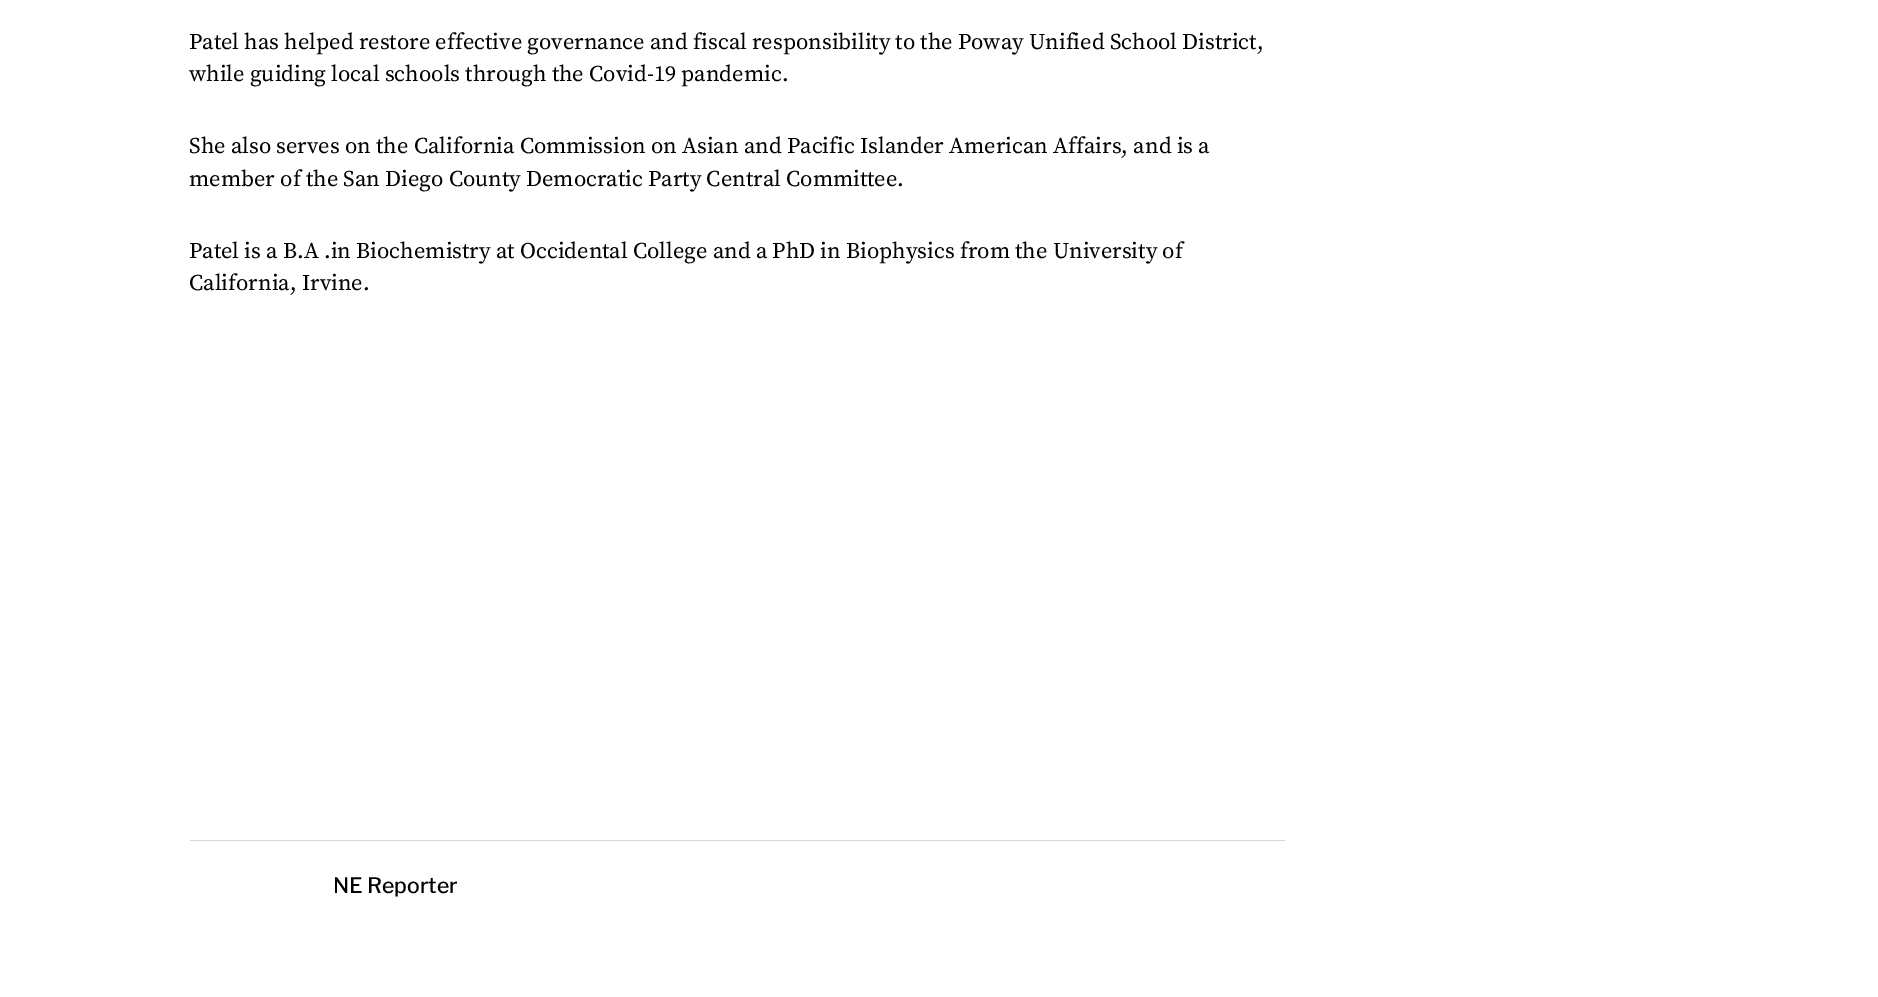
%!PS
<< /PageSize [1878 997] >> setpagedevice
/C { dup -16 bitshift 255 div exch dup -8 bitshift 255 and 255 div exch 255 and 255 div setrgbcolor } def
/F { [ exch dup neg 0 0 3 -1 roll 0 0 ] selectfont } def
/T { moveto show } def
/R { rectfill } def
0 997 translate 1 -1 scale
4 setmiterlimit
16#FFFFFF C
0 0 1878 997 R
/SourceSerifPro-Regular 22.5 F
16#000000 C
(Patel has helped restore effective governance and fiscal responsibility to the Poway Unified School District,) 189 49 T
(while guiding local schools through the Covid-19 pandemic.) 189 81 T
(She also serves on the California Commission on Asian and Pacific Islander American Affairs, and is a) 189 153 T
(member of the San Diego County Democratic Party Central Committee.) 189 186 T
(Patel is a B.A .in Biochemistry at Occidental College and a PhD in Biophysics from the University of) 189 258 T
(California, Irvine.) 189 290 T
16#D5D5D5 C
190 840 1095 1 R
/LibreFranklin-Medium 21.25 F
16#000000 C
(NE Reporter) 333 893 T
showpage
